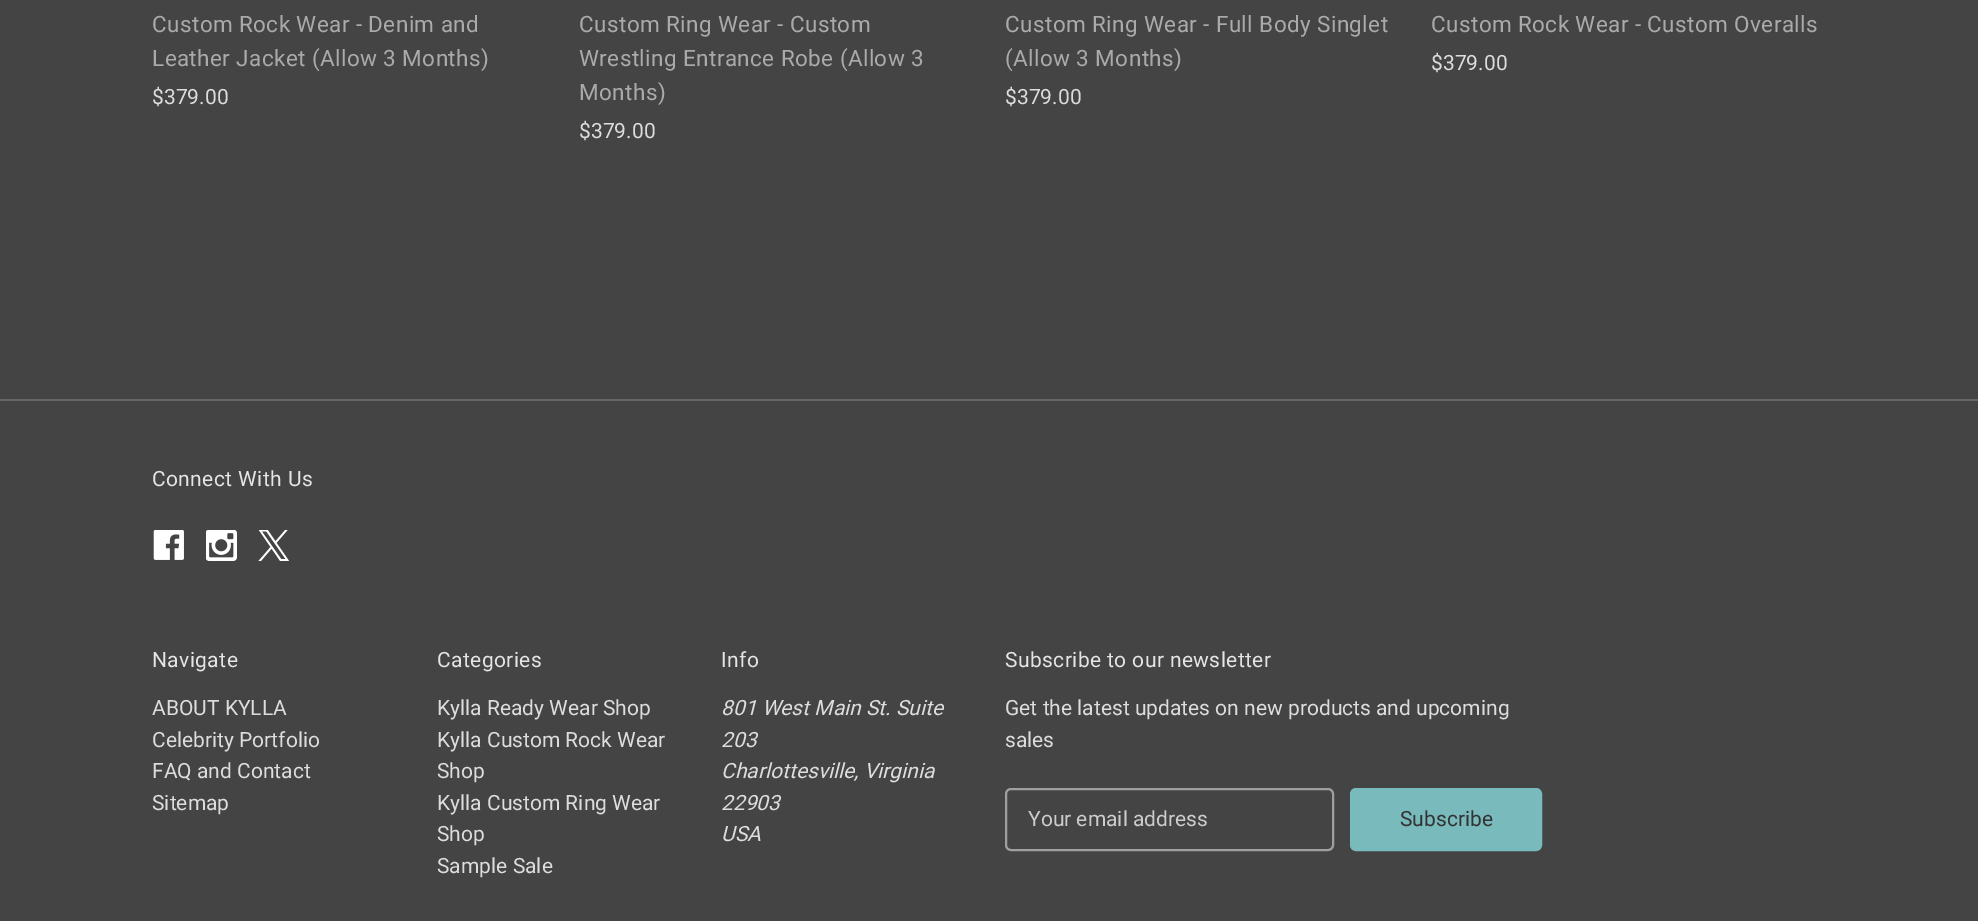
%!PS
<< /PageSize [1978 921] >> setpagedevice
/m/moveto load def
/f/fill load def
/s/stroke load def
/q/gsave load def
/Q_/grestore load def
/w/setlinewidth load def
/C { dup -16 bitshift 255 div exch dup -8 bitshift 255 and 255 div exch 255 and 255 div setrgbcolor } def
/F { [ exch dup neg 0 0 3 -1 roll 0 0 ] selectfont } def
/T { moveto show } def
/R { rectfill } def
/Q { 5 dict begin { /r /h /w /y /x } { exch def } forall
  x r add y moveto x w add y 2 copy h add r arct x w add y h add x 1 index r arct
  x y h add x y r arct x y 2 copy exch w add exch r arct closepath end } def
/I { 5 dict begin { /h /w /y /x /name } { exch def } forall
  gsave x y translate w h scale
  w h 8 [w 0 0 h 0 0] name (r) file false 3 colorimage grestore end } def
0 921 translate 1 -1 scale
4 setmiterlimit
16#444444 C
0 0 1978 921 R
/Roboto-Regular 22.5 F
16#AAAAAA C
152 32 m .4 0 (Custom Rock Wear - Denim and) ashow
152 66 m .4 0 (Leather Jacket \(Allow 3 Months\)) ashow
/Roboto-Regular 21 F
16#DDDDDD C
($379.00) 152 104 T
/Roboto-Regular 22.5 F
16#AAAAAA C
579 32 m .4 0 (Custom Ring Wear - Custom) ashow
579 66 m .4 0 (Wrestling Entrance Robe \(Allow 3) ashow
579 100 m .4 0 (Months\)) ashow
/Roboto-Regular 21 F
16#DDDDDD C
($379.00) 579 138 T
/Roboto-Regular 22.5 F
16#AAAAAA C
1005 32 m .4 0 (Custom Ring Wear - Full Body Singlet) ashow
1005 66 m .4 0 (\(Allow 3 Months\)) ashow
/Roboto-Regular 21 F
16#DDDDDD C
($379.00) 1005 104 T
/Roboto-Regular 22.5 F
16#AAAAAA C
1431 32 m .4 0 (Custom Rock Wear - Custom Overalls) ashow
/Roboto-Regular 21 F
16#DDDDDD C
($379.00) 1431 70 T
16#666666 C
0 399 1978 2 R
16#E5E5E5 C
152 486 m .4 0 (Connect With Us) ashow
(1.rgb) 153 530 31 30 I
(2.rgb) 206 530 31 31 I
(3.rgb) 258 530 32 31 I
152 667 m .4 0 (Navigate) ashow
16#DDDDDD C
(ABOUT KYLLA) 152 715 T
(Celebrity Portfolio) 152 747 T
(FAQ and Contact) 152 778 T
(Sitemap) 152 810 T
16#E5E5E5 C
437 667 m .4 0 (Categories) ashow
16#DDDDDD C
(Kylla Ready Wear Shop) 437 715 T
(Kylla Custom Rock Wear) 437 747 T
(Shop) 437 778 T
(Kylla Custom Ring Wear) 437 810 T
(Shop) 437 841 T
(Sample Sale) 437 873 T
16#E5E5E5 C
721 667 m .4 0 (Info) ashow
/Roboto-Italic 21 F
16#DDDDDD C
(801 West Main St. Suite) 721 715 T
(203) 721 747 T
(Charlottesville, Virginia) 721 778 T
(22903) 721 810 T
(USA) 721 841 T
/Roboto-Regular 21 F
16#E5E5E5 C
1005 667 m .4 0 (Subscribe to our newsletter) ashow
16#DDDDDD C
(Get the latest updates on new products and upcoming) 1005 715 T
(sales) 1005 747 T
16#9F9F9F C
2 w
1006 789 327 61 5 Q s
16#CCCCCC C
(Your email address) 1028 826 T
16#79BABD C
1351 789 190 61 5 Q q f Q_
s
16#333333 C
(Subscribe) 1400 826 T
showpage
